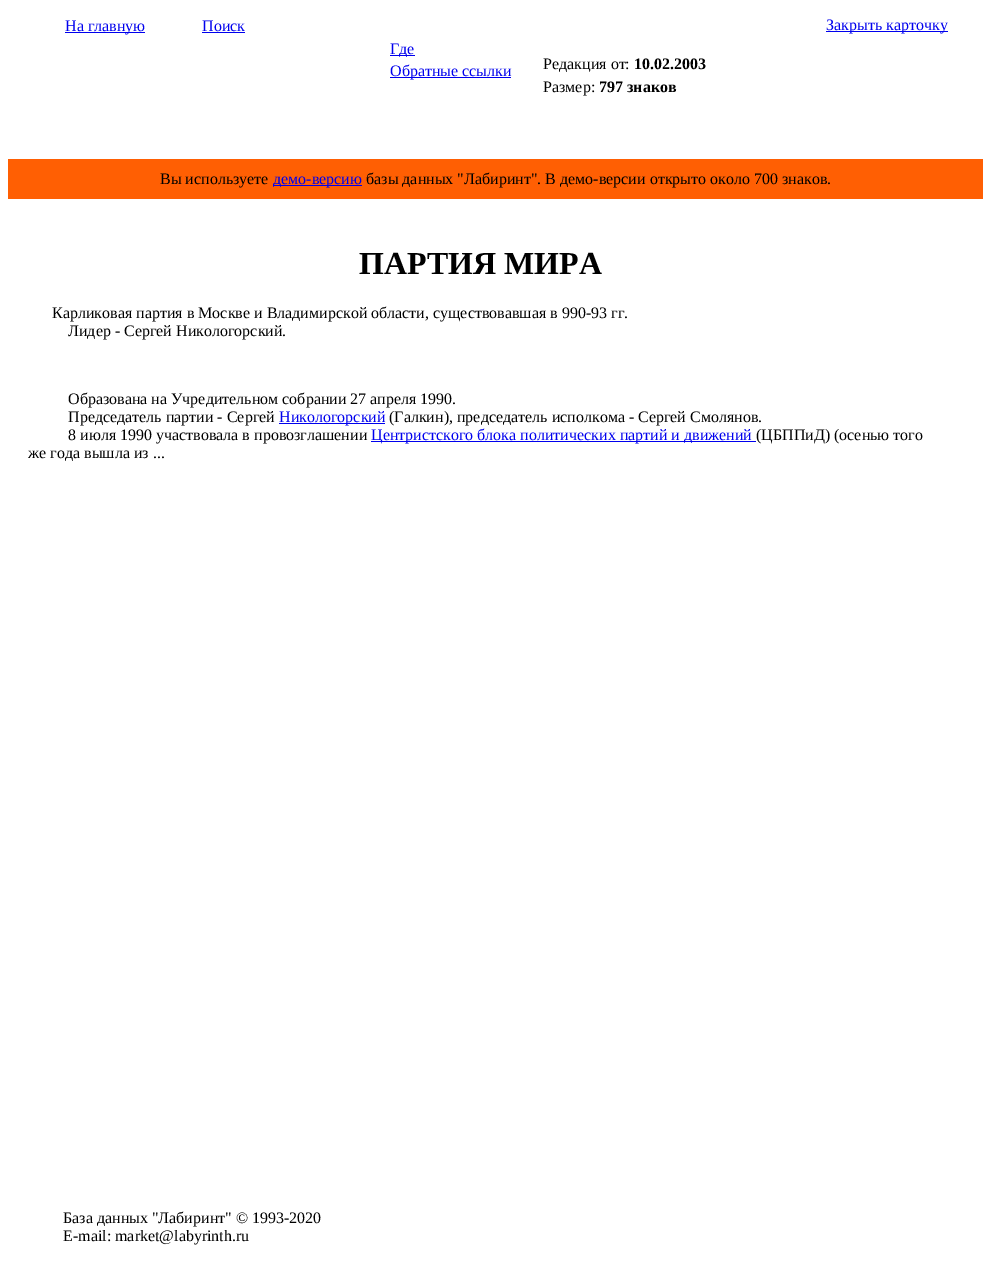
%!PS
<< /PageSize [991 1271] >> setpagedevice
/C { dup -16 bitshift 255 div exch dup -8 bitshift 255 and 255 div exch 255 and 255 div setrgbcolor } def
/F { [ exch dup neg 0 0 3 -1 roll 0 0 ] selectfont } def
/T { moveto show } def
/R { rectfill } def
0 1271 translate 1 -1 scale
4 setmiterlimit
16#FFFFFF C
0 0 991 1271 R
16#0000EE C
65 32 80 1 R
/LiberationSerif-Regular 16 F
(На главную) 65 31 T
(Поиск) 202 31 T
202 32 43 1 R
826 31 122 1 R
(Закрыть карточку) 826 30 T
16#000000 C
(Редакция от:) 543 69 T
/LiberationSerif-Bold 16 F
(10.02.2003) 634 69 T
/LiberationSerif-Regular 16 F
(Размер:) 543 92 T
/LiberationSerif-Bold 16 F
(797 знаков) 599 92 T
16#0000EE C
390 55 25 1 R
/LiberationSerif-Regular 16 F
(Где) 390 54 T
390 77 121 1 R
(Обратные ссылки) 390 76 T
16#FF5F03 C
8 159 975 40 R
16#000000 C
(Вы используете) 160 184 T
16#0000EE C
273 185 89 1 R
(демо-версию) 273 184 T
16#000000 C
(базы данных "Лабиринт". В демо-версии открыто около 700 знаков.) 366 184 T
/LiberationSerif-Bold 32 F
(ПАРТИЯ МИРА) 359 274 T
/LiberationSerif-Regular 16 F
(Карликовая партия в Москве и Владимирской области, существовавшая в 990-93 гг.) 52 318 T
(Лидер - Сергей Никологорский.) 68 336 T
(Образована на Учредительном собрании 27 апреля 1990.) 68 404 T
(Председатель партии - Сергей) 68 422 T
16#0000EE C
279 423 106 1 R
(Никологорский) 279 422 T
16#000000 C
(\(Галкин\), председатель исполкома - Сергей Смолянов.) 389 422 T
(8 июля 1990 участвовала в провозглашении) 68 440 T
16#0000EE C
371 441 385 1 R
(Центристского блока политических партий и движений) 371 440 T
16#000000 C
(\(ЦБППиД\) \(осенью того) 756 440 T
(же года вышла из ...) 28 458 T
(База данных "Лабиринт" © 1993-2020) 63 1223 T
(E-mail: market@labyrinth.ru) 63 1241 T
showpage
